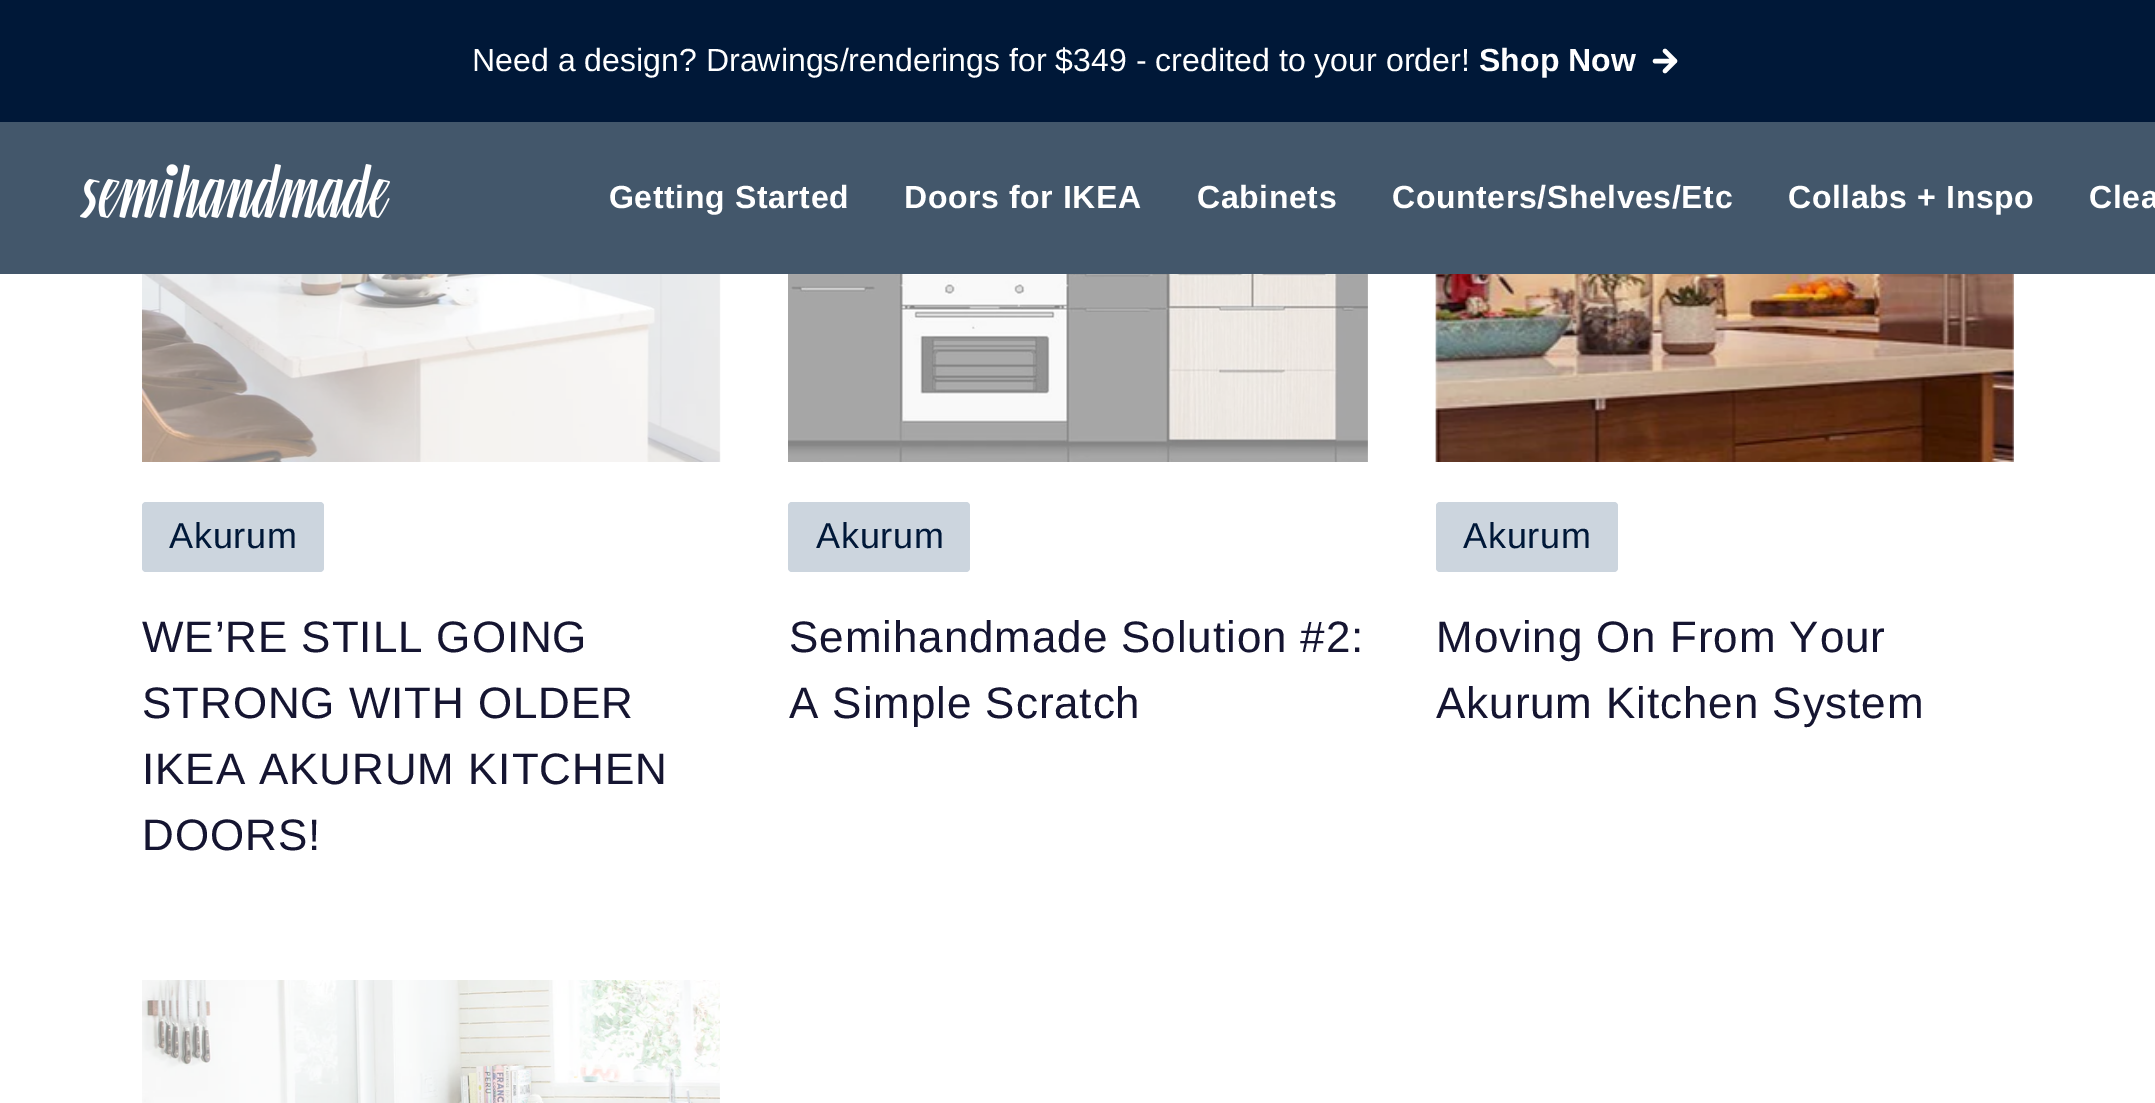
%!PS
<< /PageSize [2155 1103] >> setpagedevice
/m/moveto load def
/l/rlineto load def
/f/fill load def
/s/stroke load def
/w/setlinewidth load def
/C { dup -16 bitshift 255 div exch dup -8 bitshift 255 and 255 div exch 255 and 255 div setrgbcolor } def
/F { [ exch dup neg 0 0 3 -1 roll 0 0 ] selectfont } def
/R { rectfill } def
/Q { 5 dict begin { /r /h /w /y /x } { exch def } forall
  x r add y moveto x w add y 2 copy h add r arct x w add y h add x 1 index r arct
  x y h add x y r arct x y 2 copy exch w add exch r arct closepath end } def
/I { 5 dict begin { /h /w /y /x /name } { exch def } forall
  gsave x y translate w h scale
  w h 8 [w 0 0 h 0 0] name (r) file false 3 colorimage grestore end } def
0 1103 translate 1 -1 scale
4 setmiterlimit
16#FFFFFF C
0 0 2155 1103 R
16#43576B C
0 122 2155 152 R
16#001838 C
0 0 2155 122 R
/LiberationSans-Regular 32 F
16#FFFFFF C
472 71 m .05 0 (Need a design? Drawings/renderings for $349 - credited to your order!) ashow
/LiberationSans-Bold 32 F
1479 71 m .05 0 (Shop Now) ashow
4.5 w
1 setlinecap
1 setlinejoin
1655 61 m 20 0 l 1665 51 m 10 10 l -10 10 l s
(1.rgb) 80 164 310 54 I
609 208 m .6 0 (Getting Started) ashow
904 208 m .6 0 (Doors for IKEA) ashow
1197 208 m .6 0 (Cabinets) ashow
1392 208 m .6 0 (Counters/Shelves/Etc) ashow
1788 208 m .6 0 (Collabs + Inspo) ashow
2089 208 m .6 0 (Clea) ashow
(2.rgb) 142 274 579 188 I
16#CCD5DE C
142 502 182 70 4 Q f
/LiberationSans-Regular 36 F
16#001838 C
169 548 m .75 0 (Akurum) ashow
/LiberationSans-Regular 44 F
16#151531 C
142 652 m .9 0 (WE’RE STILL GOING) ashow
142 718 m .9 0 (STRONG WITH OLDER) ashow
142 784 m .9 0 (IKEA AKURUM KITCHEN) ashow
142 850 m .9 0 (DOORS!) ashow
(3.rgb) 788 274 580 188 I
16#CCD5DE C
788 502 182 70 4 Q f
/LiberationSans-Regular 36 F
16#001838 C
816 548 m .75 0 (Akurum) ashow
/LiberationSans-Regular 44 F
16#151531 C
789 652 m .9 0 (Semihandmade Solution #2:) ashow
789 718 m .9 0 (A Simple Scratch) ashow
(4.rgb) 1435 274 579 188 I
16#CCD5DE C
1436 502 182 70 4 Q f
/LiberationSans-Regular 36 F
16#001838 C
1463 548 m .75 0 (Akurum) ashow
/LiberationSans-Regular 44 F
16#151531 C
1436 652 m .9 0 (Moving On From Your) ashow
1436 718 m .9 0 (Akurum Kitchen System) ashow
(5.rgb) 142 980 578 123 I
showpage
